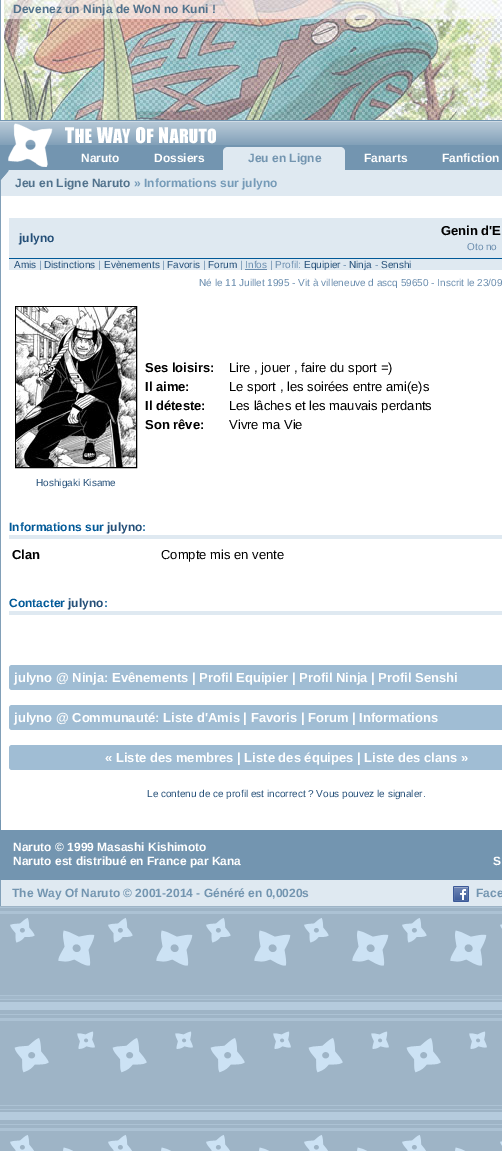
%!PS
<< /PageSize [502 1151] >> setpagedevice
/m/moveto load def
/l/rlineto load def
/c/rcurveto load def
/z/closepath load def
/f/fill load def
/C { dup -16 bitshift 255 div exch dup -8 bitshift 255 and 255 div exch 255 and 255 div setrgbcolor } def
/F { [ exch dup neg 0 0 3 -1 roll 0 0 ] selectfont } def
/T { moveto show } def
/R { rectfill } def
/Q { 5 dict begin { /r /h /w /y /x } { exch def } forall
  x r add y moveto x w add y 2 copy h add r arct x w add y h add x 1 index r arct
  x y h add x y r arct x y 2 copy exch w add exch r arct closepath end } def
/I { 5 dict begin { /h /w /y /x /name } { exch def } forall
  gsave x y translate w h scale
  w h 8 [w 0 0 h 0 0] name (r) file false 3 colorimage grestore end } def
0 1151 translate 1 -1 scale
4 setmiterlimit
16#FFFFFF C
0 0 502 1151 R
(1.rgb) 0 906 502 245 I
16#82A0B8 C
0 0 1 906 R
(2.rgb) 4 0 498 120 I
/LiberationSans-Bold 12 F
16#51728C C
(Devenez un Ninja de WoN no Kuni !) 13 13 T
16#7395B0 C
1 120 501 50 R
(3.rgb) 9 121 493 24 I
16#DFE9F1 C
1 170 501 26 R
(4.rgb) 0 120 9 60 I
(5.rgb) 8 123 208 44 I
16#FFFFFF C
(Naruto) 81 162 T
(Dossiers) 154 162 T
16#DFE9F1 C
228 147 m 112 0 l 3 0 5 2 5 5 c 0 18 l -122 0 l 0 -18 l 0 -3 2 -5 5 -5 c z f
16#7395B0 C
(Jeu en Ligne) 248 162 T
16#FFFFFF C
(Fanarts) 364 162 T
(Fanfiction) 442 162 T
16#51728C C
(Jeu en Ligne Naruto) 15 187 T
16#769BB8 C
(» Informations sur julyno) 134 187 T
16#DFE9F1 C
9 218 493 40 R
16#244F78 C
(julyno) 19 242 T
/LiberationSans-Bold 13 F
16#000000 C
(Genin d'E) 441 235 T
/LiberationSans-Regular 10 F
16#6A8DAE C
(Oto no) 467 250 T
16#005998 C
9 258 493 1 R
16#DFE9F1 C
9 259 493 11 R
16#244F78 C
(Amis) 14 268 T
16#6A8DAE C
(|) 39 268 T
16#244F78 C
(Distinctions) 44 268 T
16#6A8DAE C
(|) 98 268 T
16#244F78 C
(Evènements) 104 268 T
16#6A8DAE C
(|) 162 268 T
16#244F78 C
(Favoris) 167 268 T
16#6A8DAE C
(|) 203 268 T
16#244F78 C
(Forum) 208 268 T
16#6A8DAE C
(| Infos | Profil:) 240 268 T
16#244F78 C
(Equipier) 304 268 T
16#6A8DAE C
(-) 343 268 T
16#244F78 C
(Ninja) 349 268 T
16#6A8DAE C
(-) 375 268 T
16#244F78 C
(Senshi) 381 268 T
16#6A8DAE C
245 269 22 1 R
(Né le 11 Juillet 1995 - Vit à villeneuve d ascq 59650 - Inscrit le 23/09) 199 286 T
/LiberationSans-Bold 13 F
16#000000 C
(Ses loisirs:) 145 372 T
/LiberationSans-Regular 13 F
(Lire , jouer , faire du sport =\)) 229 372 T
/LiberationSans-Bold 13 F
(Il aime:) 145 391 T
/LiberationSans-Regular 13 F
(Le sport , les soirées entre ami\(e\)s) 229 391 T
/LiberationSans-Bold 13 F
(Il déteste:) 145 410 T
/LiberationSans-Regular 13 F
(Les lâches et les mauvais perdants) 229 410 T
/LiberationSans-Bold 13 F
(Son rêve:) 145 429 T
/LiberationSans-Regular 13 F
(Vivre ma Vie) 229 429 T
15.5 306.5 121 161 rectstroke
(6.rgb) 16 307 120 160 I
/LiberationSans-Regular 10 F
16#244F78 C
(Hoshigaki Kisame) 36 486 T
16#DFE9F1 C
9 535 493 4 R
/LiberationSans-Bold 12 F
16#005998 C
(Informations sur) 9 531 T
16#244F78 C
(julyno) 107 531 T
16#005998 C
(:) 142 531 T
/LiberationSans-Bold 13 F
16#000000 C
(Clan) 12 559 T
/LiberationSans-Regular 13 F
(Compte mis en vente) 161 559 T
16#DFE9F1 C
9 611 493 4 R
/LiberationSans-Bold 12 F
16#005998 C
(Contacter) 9 607 T
16#244F78 C
(julyno) 68 607 T
16#005998 C
(:) 104 607 T
16#A0BDD4 C
9 665 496 25 3 Q f
/LiberationSans-Bold 13 F
16#FFFFFF C
(julyno @ Ninja: Evênements | Profil Equipier | Profil Ninja | Profil Senshi) 14 682 T
16#A0BDD4 C
9 705 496 25 3 Q f
16#FFFFFF C
(julyno @ Communauté: Liste d'Amis | Favoris | Forum | Informations) 14 722 T
16#A0BDD4 C
9 745 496 25 3 Q f
16#FFFFFF C
(« Liste des membres | Liste des équipes | Liste des clans ») 105 762 T
/LiberationSans-Regular 10 F
16#244F78 C
(Le contenu de ce profil est incorrect ? Vous pouvez le signaler.) 147 797 T
16#7395B0 C
1 830 501 50 R
0 820 1 60 R
/LiberationSans-Bold 12 F
16#FFFFFF C
(Naruto © 1999 Masashi Kishimoto) 13 851 T
(Naruto est distribué en France par Kana) 13 865 T
(S) 493 865 T
16#DFE9F1 C
1 880 501 26 R
16#7395B0 C
(The Way Of Naruto © 2001-2014 - Généré en 0,0020s) 12 897 T
(7.rgb) 453 886 16 16 I
(Face) 476 897 T
showpage
